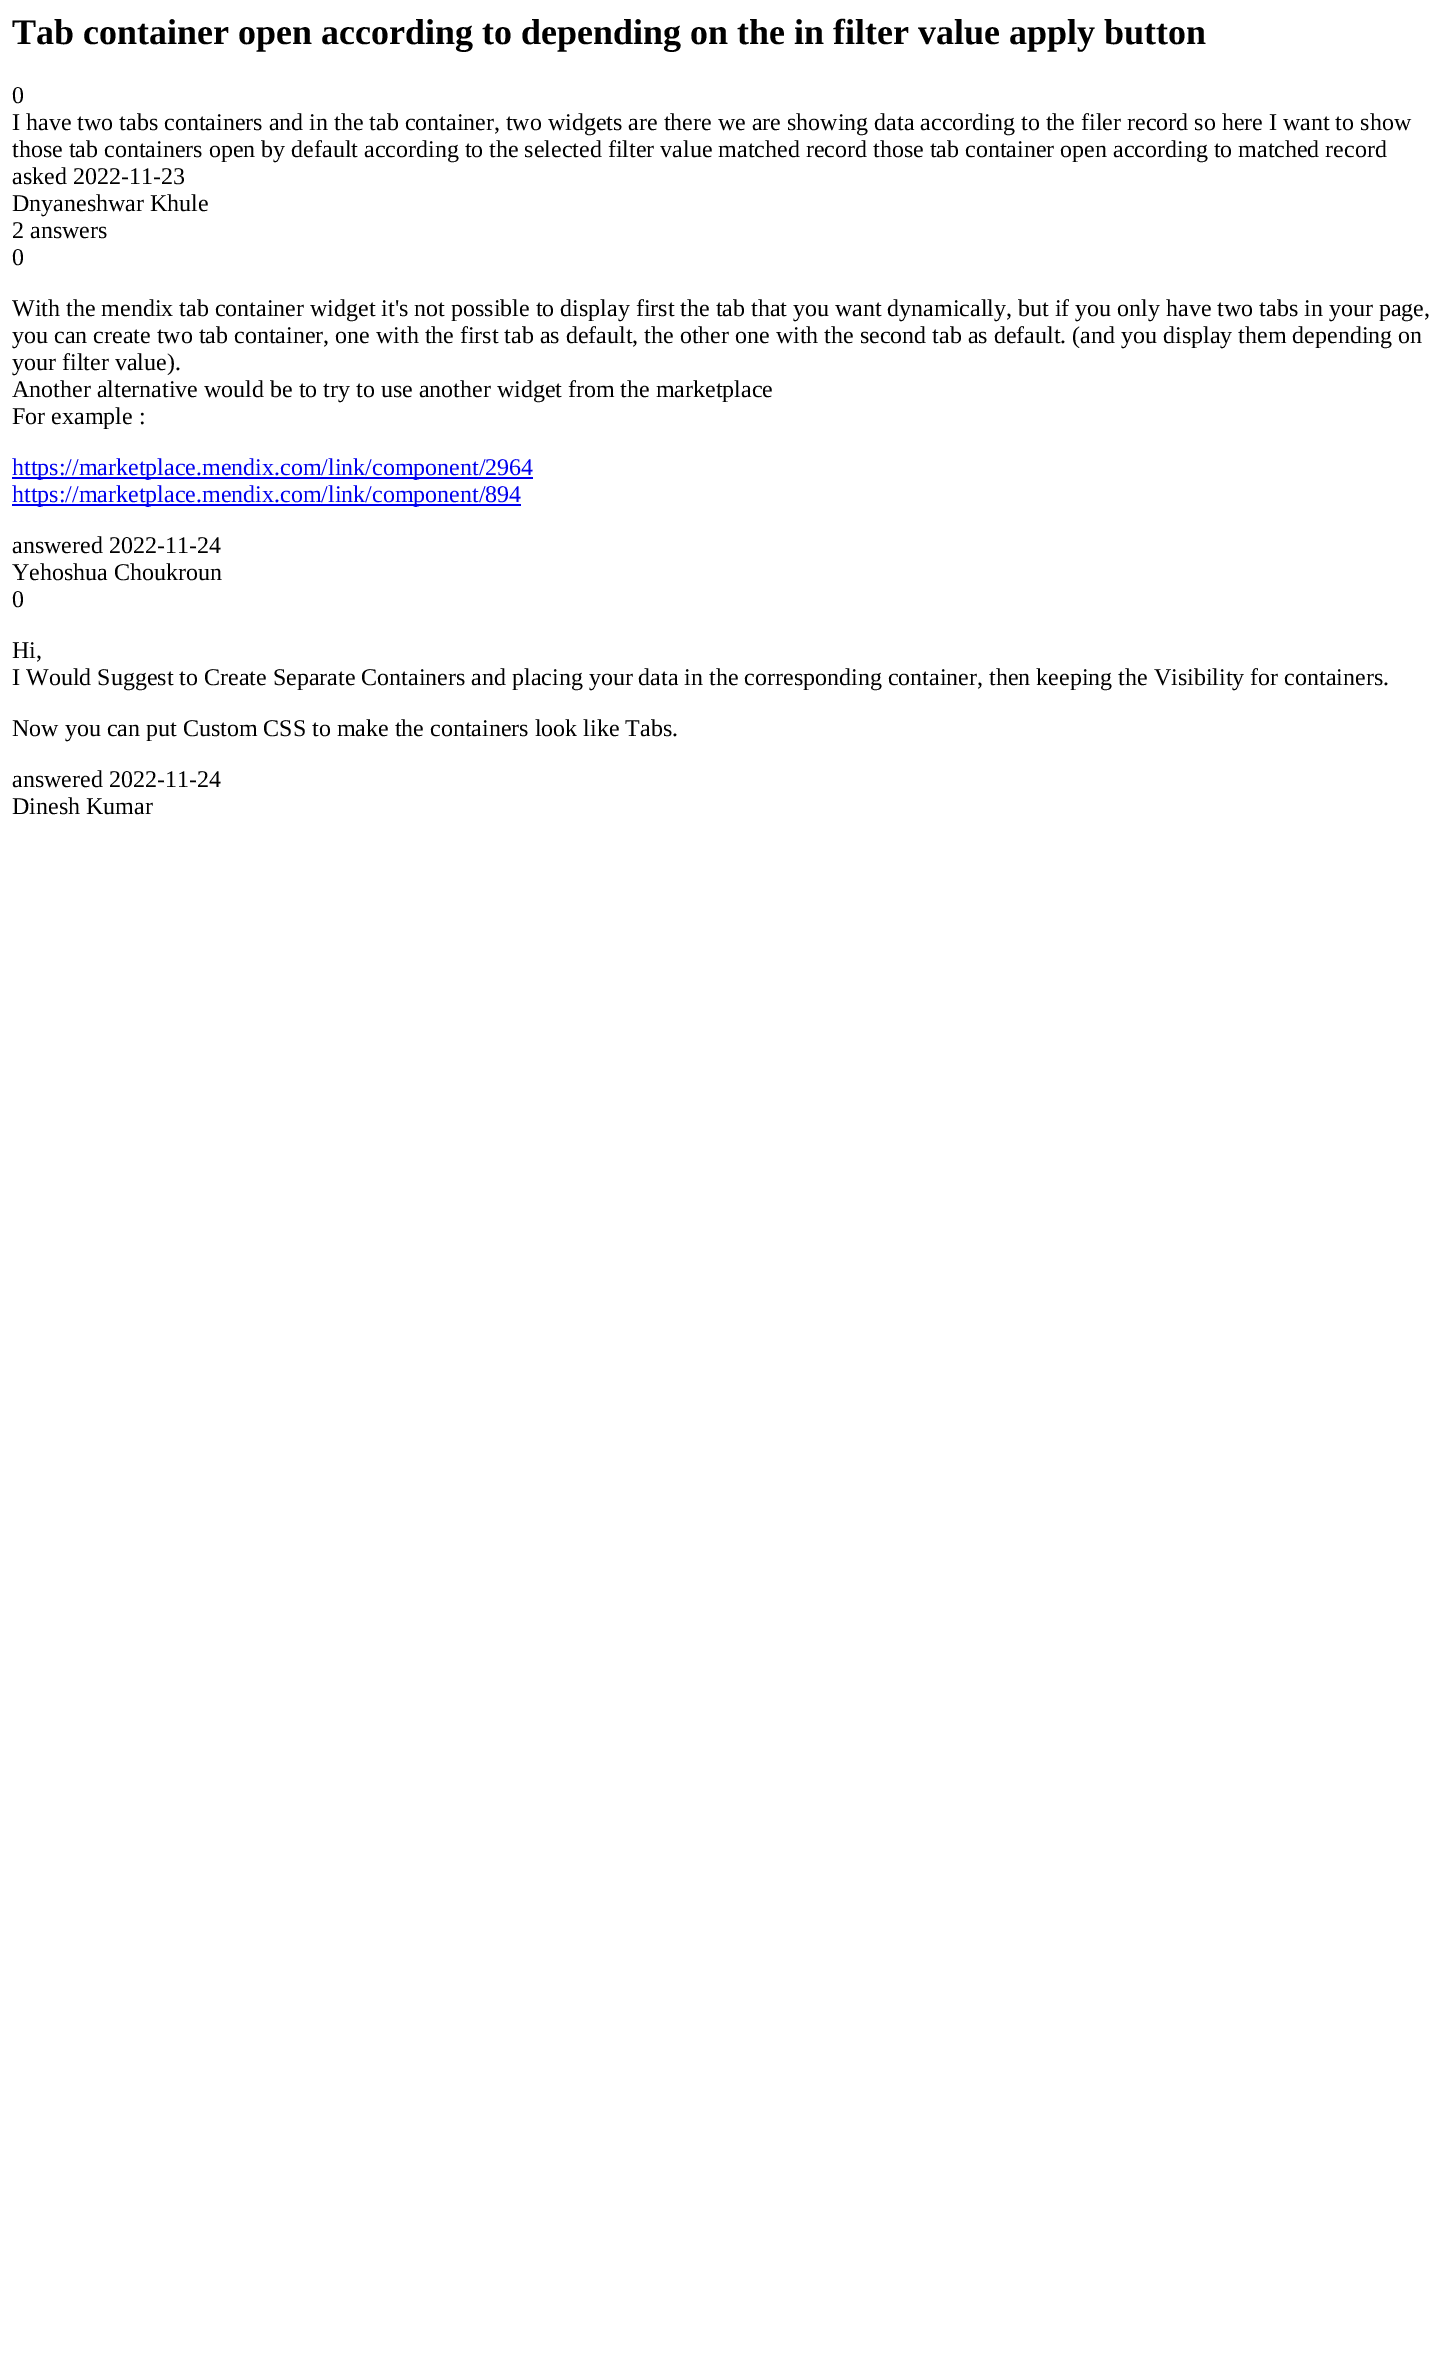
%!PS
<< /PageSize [1447 2373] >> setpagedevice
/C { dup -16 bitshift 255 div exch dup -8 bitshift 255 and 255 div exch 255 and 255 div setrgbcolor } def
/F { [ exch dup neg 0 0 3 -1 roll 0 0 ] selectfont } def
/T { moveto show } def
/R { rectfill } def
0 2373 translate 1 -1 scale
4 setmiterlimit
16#FFFFFF C
0 0 1447 2373 R
/LiberationSerif-Bold 36 F
16#000000 C
(Tab container open according to depending on the in filter value apply button) 12 44 T
/LiberationSerif-Regular 24 F
(0) 12 103 T
(I have two tabs containers and in the tab container, two widgets are there we are showing data according to the filer record so here I want to show) 12 130 T
(those tab containers open by default according to the selected filter value matched record those tab container open according to matched record) 12 157 T
(asked 2022-11-23) 12 184 T
(Dnyaneshwar Khule) 12 211 T
(2 answers) 12 238 T
(0) 12 265 T
(With the mendix tab container widget it's not possible to display first the tab that you want dynamically, but if you only have two tabs in your page,) 12 316 T
(you can create two tab container, one with the first tab as default, the other one with the second tab as default. \(and you display them depending on) 12 343 T
(your filter value\).) 12 370 T
(Another alternative would be to try to use another widget from the marketplace) 12 397 T
(For example :) 12 424 T
16#0000EE C
12 477 521 2 R
(https://marketplace.mendix.com/link/component/2964) 12 475 T
12 504 509 2 R
(https://marketplace.mendix.com/link/component/894) 12 502 T
16#000000 C
(answered 2022-11-24) 12 553 T
(Yehoshua Choukroun) 12 580 T
(0) 12 607 T
(Hi,) 12 658 T
(I Would Suggest to Create Separate Containers and placing your data in the corresponding container, then keeping the Visibility for containers.) 12 685 T
(Now you can put Custom CSS to make the containers look like Tabs.) 12 736 T
(answered 2022-11-24) 12 787 T
(Dinesh Kumar) 12 814 T
showpage
